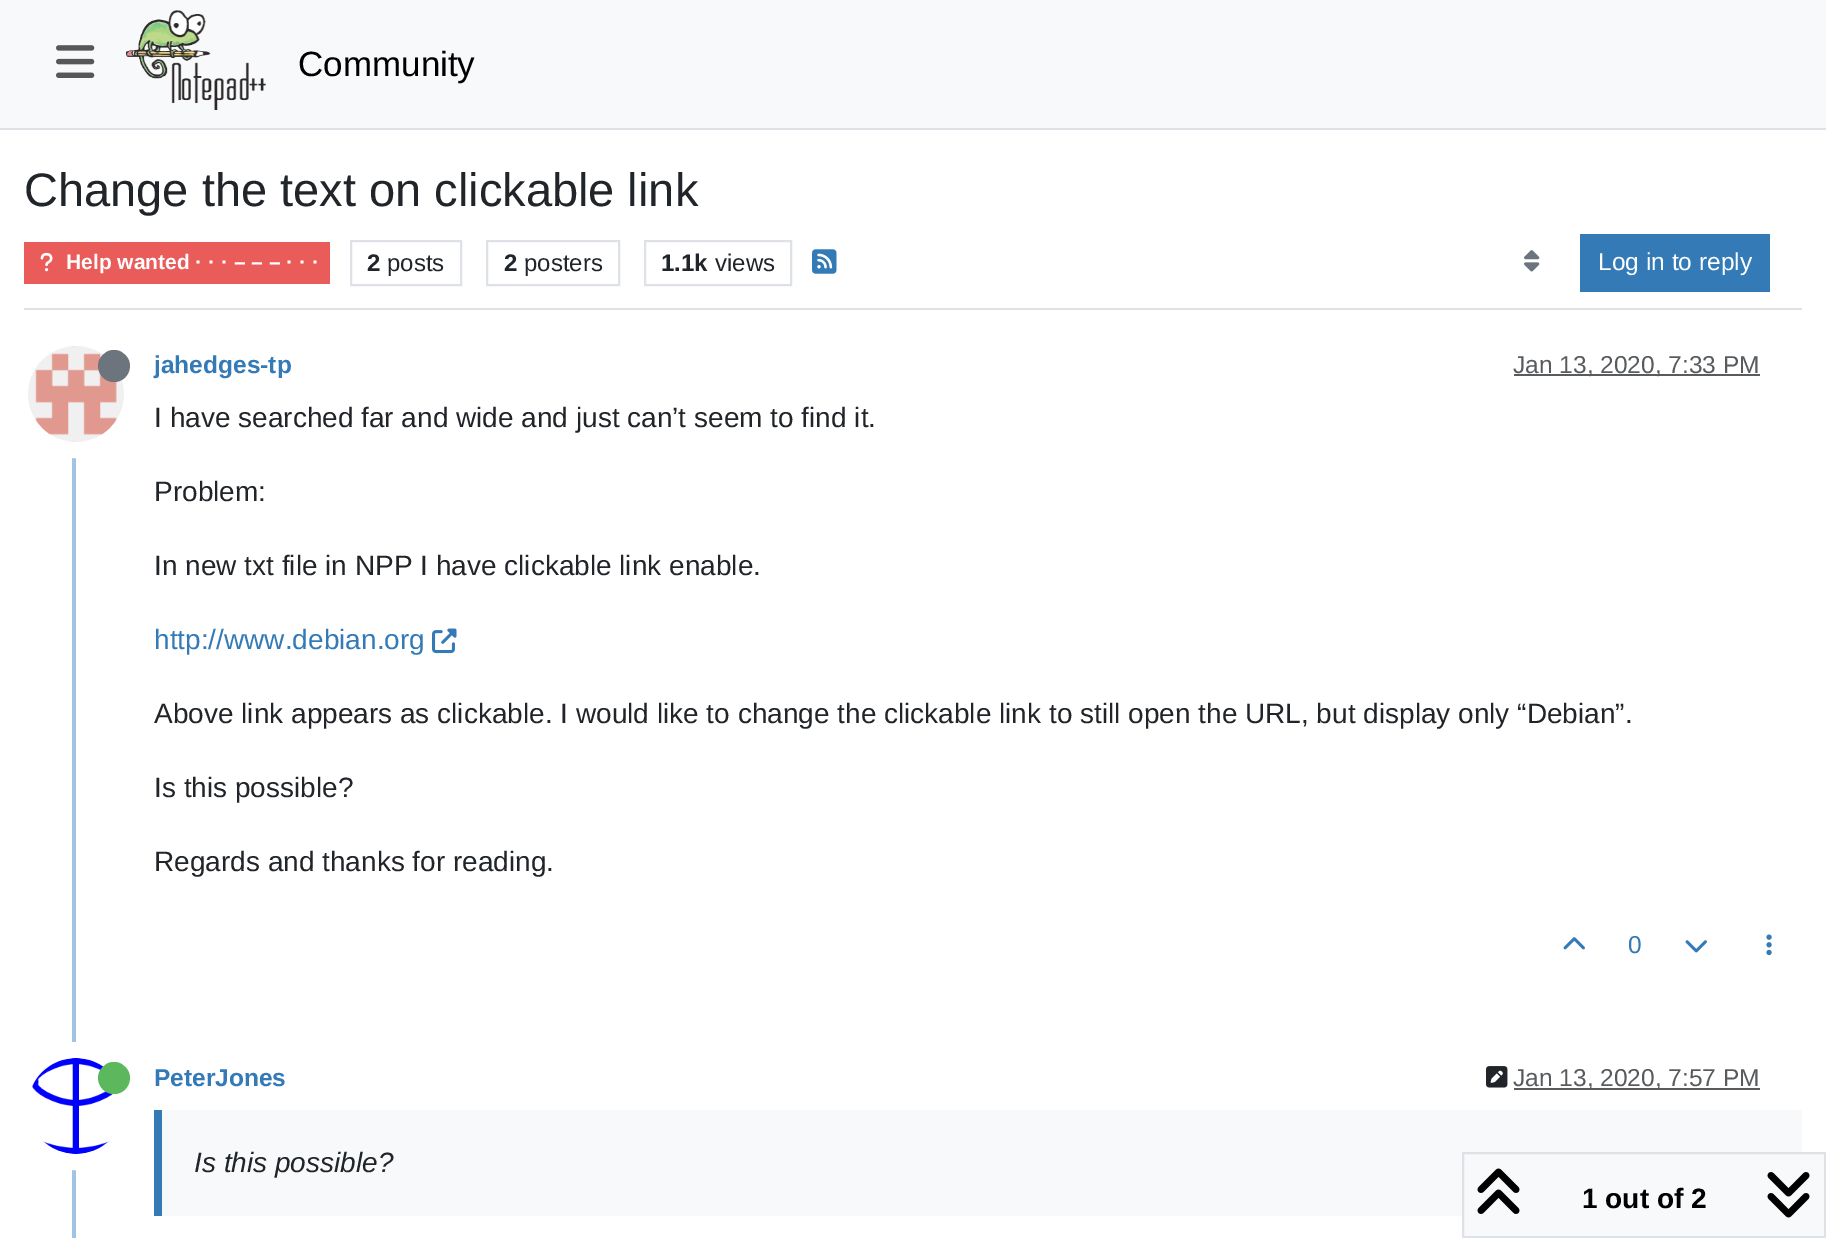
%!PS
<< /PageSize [1826 1238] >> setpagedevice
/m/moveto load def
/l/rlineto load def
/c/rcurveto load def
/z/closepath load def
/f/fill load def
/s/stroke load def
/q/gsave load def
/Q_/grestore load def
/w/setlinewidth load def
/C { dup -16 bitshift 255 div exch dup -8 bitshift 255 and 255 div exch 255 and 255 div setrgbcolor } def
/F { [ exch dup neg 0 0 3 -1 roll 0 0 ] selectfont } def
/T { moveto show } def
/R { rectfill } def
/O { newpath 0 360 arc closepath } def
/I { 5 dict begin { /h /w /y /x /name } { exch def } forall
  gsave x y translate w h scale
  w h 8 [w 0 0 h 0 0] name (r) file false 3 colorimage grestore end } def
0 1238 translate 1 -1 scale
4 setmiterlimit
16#FFFFFF C
0 0 1826 1238 R
16#F8F9FA C
0 0 1826 128 R
16#DEE2E6 C
0 128 1826 2 R
(1.rgb) 56 45 39 33 I
(2.rgb) 126 10 140 100 I
/LiberationSans-Regular 35 F
16#000000 C
(Community) 298 76 T
16#DEE2E6 C
24 308 1778 2 R
/LiberationSans-Regular 47 F
16#212529 C
(Change the text on clickable link) 24 206 T
16#E95C5A C
24 242 306 42 R
(3.rgb) 40 252 13 20 I
/LiberationSans-Bold 21 F
16#FFFFFF C
(Help wanted · · · – – – · · ·) 66 269 T
16#DEE2E6 C
2 w
351 241 110 44 rectstroke
/LiberationSans-Bold 24 F
16#212529 C
(2) 367 271 T
/LiberationSans-Regular 24 F
(posts) 387 271 T
16#DEE2E6 C
487 241 132 44 rectstroke
/LiberationSans-Bold 24 F
16#212529 C
(2) 504 271 T
/LiberationSans-Regular 24 F
(posters) 524 271 T
16#DEE2E6 C
645 241 146 44 rectstroke
/LiberationSans-Bold 24 F
16#212529 C
(1.1k) 661 271 T
/LiberationSans-Regular 24 F
(views) 715 271 T
(4.rgb) 812 249 25 25 I
(5.rgb) 1524 250 16 22 I
16#337AB7 C
1580 234 190 58 R
/LiberationSans-Regular 24.5 F
16#FFFFFF C
(Log in to reply) 1598 270 T
16#A0C4E4 C
72 342 4 896 R
16#FFFFFF C
16 w
76 394 56 O s
(6.rgb) 28 346 96 96 I
16#6C757D C
114 382 m 15 0 22 -19.5 9.5 -28.5 c -2.5 -2.5 -6 -3.5 -9.5 -3.5 c -3.5 0 -7 1 -9.5 3.5 c -12.5 9 -5.5 28.5 9.5 28.5 c z f
/LiberationSans-Bold 24.5 F
16#337AB7 C
(jahedges-tp) 154 373 T
16#595C5F C
1514 374 246 2 R
/LiberationSans-Regular 24.5 F
16#585B5E C
(Jan 13, 2020, 7:33 PM) 1513 373 T
/LiberationSans-Regular 28 F
16#212529 C
(I have searched far and wide and just can’t seem to find it.) 154 427 T
(Problem:) 154 501 T
(In new txt file in NPP I have clickable link enable.) 154 575 T
16#337AB7 C
(http://www.debian.org) 154 649 T
(7.rgb) 432 628 25 26 I
16#212529 C
(Above link appears as clickable. I would like to change the clickable link to still open the URL, but display only “Debian”.) 154 723 T
(Is this possible?) 154 797 T
(Regards and thanks for reading.) 154 871 T
(8.rgb) 1563 937 22 13 I
/LiberationSans-Regular 24.5 F
16#337AB7 C
(0) 1628 953 T
(9.rgb) 1685 940 22 13 I
(10.rgb) 1766 934 6 22 I
16#FFFFFF C
76 1106 56 O s
(11.rgb) 32 1058 83 96 I
16#5CB85C C
114 1094 m 15 0 22 -19.5 9.5 -28.5 c -2.5 -2.5 -6 -3.5 -9.5 -3.5 c -3.5 0 -7 1 -9.5 3.5 c -12.5 9 -5.5 28.5 9.5 28.5 c z f
/LiberationSans-Bold 24.5 F
16#337AB7 C
(PeterJones) 154 1086 T
(12.rgb) 1486 1066 22 22 I
16#595C5F C
1514 1088 246 2 R
/LiberationSans-Regular 24.5 F
16#585B5E C
(Jan 13, 2020, 7:57 PM) 1513 1086 T
16#F8F9FA C
162 1110 1640 106 R
16#337AB7 C
154 1110 8 106 R
/LiberationSans-Italic 28 F
16#212529 C
(Is this possible?) 194 1172 T
16#F8F9FA C
1463 1153 m 362 0 l 0 84 l -362 0 l z q f Q_
16#DEE2E6 C
2 w
s
(13.rgb) 1477 1168 43 46 I
/LiberationSans-Bold 28 F
16#000000 C
(1 out of 2) 1582 1208 T
(14.rgb) 1767 1172 43 46 I
showpage
